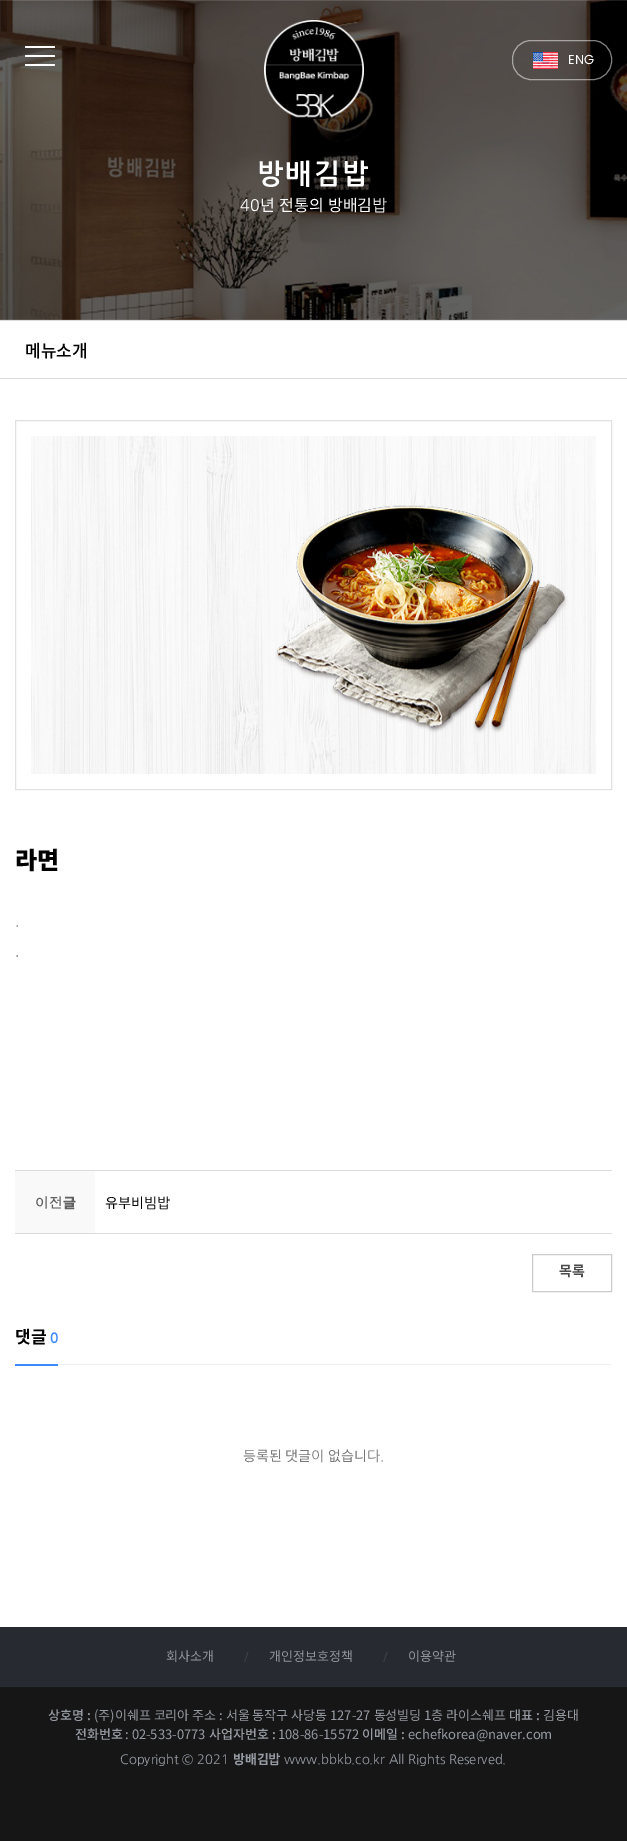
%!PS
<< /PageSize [627 1841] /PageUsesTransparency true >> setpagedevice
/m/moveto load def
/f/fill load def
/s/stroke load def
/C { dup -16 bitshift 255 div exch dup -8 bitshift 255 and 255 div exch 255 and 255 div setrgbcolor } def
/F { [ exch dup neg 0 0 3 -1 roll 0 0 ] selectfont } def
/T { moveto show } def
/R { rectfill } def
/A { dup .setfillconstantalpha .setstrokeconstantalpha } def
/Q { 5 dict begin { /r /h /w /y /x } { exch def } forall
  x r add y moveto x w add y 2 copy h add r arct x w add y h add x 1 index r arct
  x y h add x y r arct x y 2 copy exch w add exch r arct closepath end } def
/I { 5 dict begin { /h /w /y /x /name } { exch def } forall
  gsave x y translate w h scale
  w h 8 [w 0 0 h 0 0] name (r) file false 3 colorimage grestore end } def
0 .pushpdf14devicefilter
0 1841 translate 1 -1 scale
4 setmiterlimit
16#FFFFFF C
0 0 627 1841 R
(3.rgb) 0 0 627 320 I
25 55 30 2 1 Q f
25 46 30 2 1 Q f
25 64 30 2 1 Q f
(1.rgb) 264 20 100 99 I
(2.rgb) 533 52 25 17 I
0.5 A
512.5 40.5 99 39 18.5 Q s
/Poppins-Regular 13 F
1 A
(ENG) 568 64 T
/NanumGothic-Bold 28 F
257 184 m 2 0 (방배김밥) ashow
/NanumGothic-Regular 16 F
(40) 240 211 T
/NotoSansKR-Regular 16 F
260 211 m 1 0 32 (년 전통의 방배김) widthshow
/NanumGothic-Regular 16 F
(밥) 372 211 T
16#DDDDDD C
0 320 627 1 R
0 378 627 1 R
/NotoSansKR-Medium 17 F
16#000000 C
(메뉴소개) 25 357 T
16#E1E1E1 C
15.5 420.5 596 369 rectstroke
(4.rgb) 31 436 565 338 I
/NotoSansKR-Black 24 F
16#000000 C
(라면) 15 869 T
/NanumGothic-Regular 14 F
16#616161 C
(.) 15 926 T
16#464646 C
(.) 15 956 T
16#DCDBDB C
15 1170 597 1 R
15 1233 597 1 R
16#F9F9F9 C
15 1171 80 62 R
/Dotum-Bold 14 F
16#616161 C
(이전) 35 1208 T
/NotoSansKR-Black 14 F
(글) 63 1208 T
/NotoSansKR-Regular 14 F
16#000000 C
(유부비) 105 1208 T
/NanumGothic-Regular 14 F
(빔밥) 144 1208 T
16#CCCCCC C
532.5 1254.5 79 37 rectstroke
/NotoSansKR-Bold 14 F
16#4C4C4C C
(목록) 559 1276 T
16#F0F0F0 C
58 1364 554 1 R
/NotoSansKR-Bold 17 F
16#000000 C
(댓글) 15 1343 T
/NanumGothic-Bold 14 F
16#3A8AFD C
(0) 50 1343 T
15 1364 43 2 R
/NotoSansKR-Regular 14 F
16#777777 C
(등록된 댓글) 243 1461 T
/NanumGothic-Regular 14 F
(이) 311 1461 T
/NotoSansKR-Regular 14 F
(없습니) 328 1461 T
/NanumGothic-Regular 14 F
(다.) 367 1461 T
16#161616 C
0 1687 627 154 R
16#272A31 C
0 1627 627 59 R
16#2A2D35 C
0 1686 627 1 R
/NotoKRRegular-Regular 13 F
16#92959B C
(회사소개) 166 1661 T
/NanumGothic-Regular 12 F
16#464646 C
(/) 244 1661 T
/NotoKRRegular-Regular 13 F
16#92959B C
(개인정보호정책) 269 1661 T
/NanumGothic-Regular 12 F
16#464646 C
(/) 383 1661 T
/NotoKRRegular-Regular 13 F
16#92959B C
(이용약관) 408 1661 T
/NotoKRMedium-Medium 13 F
16#979BA3 C
(상호명 :) 48 1720 T
/NotoKRRegular-Regular 13 F
(\(주\)이쉐프 코리아 주소 : 서울 동작구 사당동 127-27 동성빌딩 1층 라이스쉐프) 94 1720 T
/NotoKRMedium-Medium 13 F
(대표 :) 509 1720 T
/NotoKRRegular-Regular 13 F
(김용대) 543 1720 T
/NotoKRMedium-Medium 13 F
(전화번호) 75 1739 T
/NotoKRRegular-Regular 13 F
(: 02-533-0773) 125 1739 T
/NotoKRMedium-Medium 13 F
(사업자번호 :) 209 1739 T
/NotoKRRegular-Regular 13 F
(108-86-15572) 278 1739 T
/NotoKRMedium-Medium 13 F
(이메일 :) 362 1739 T
/NotoKRRegular-Regular 13 F
(echefkorea@naver.com) 408 1739 T
/NanumGothic-Regular 13 F
(Copyright © 2021) 120 1764 T
/NotoSansKR-Bold 13 F
(방배김) 233 1764 T
/NanumGothic-Bold 13 F
(밥) 268 1764 T
/NanumGothic-Regular 13 F
(www.bbkb.co.kr All Rights Reserved.) 284 1764 T
.poppdf14devicefilter showpage
